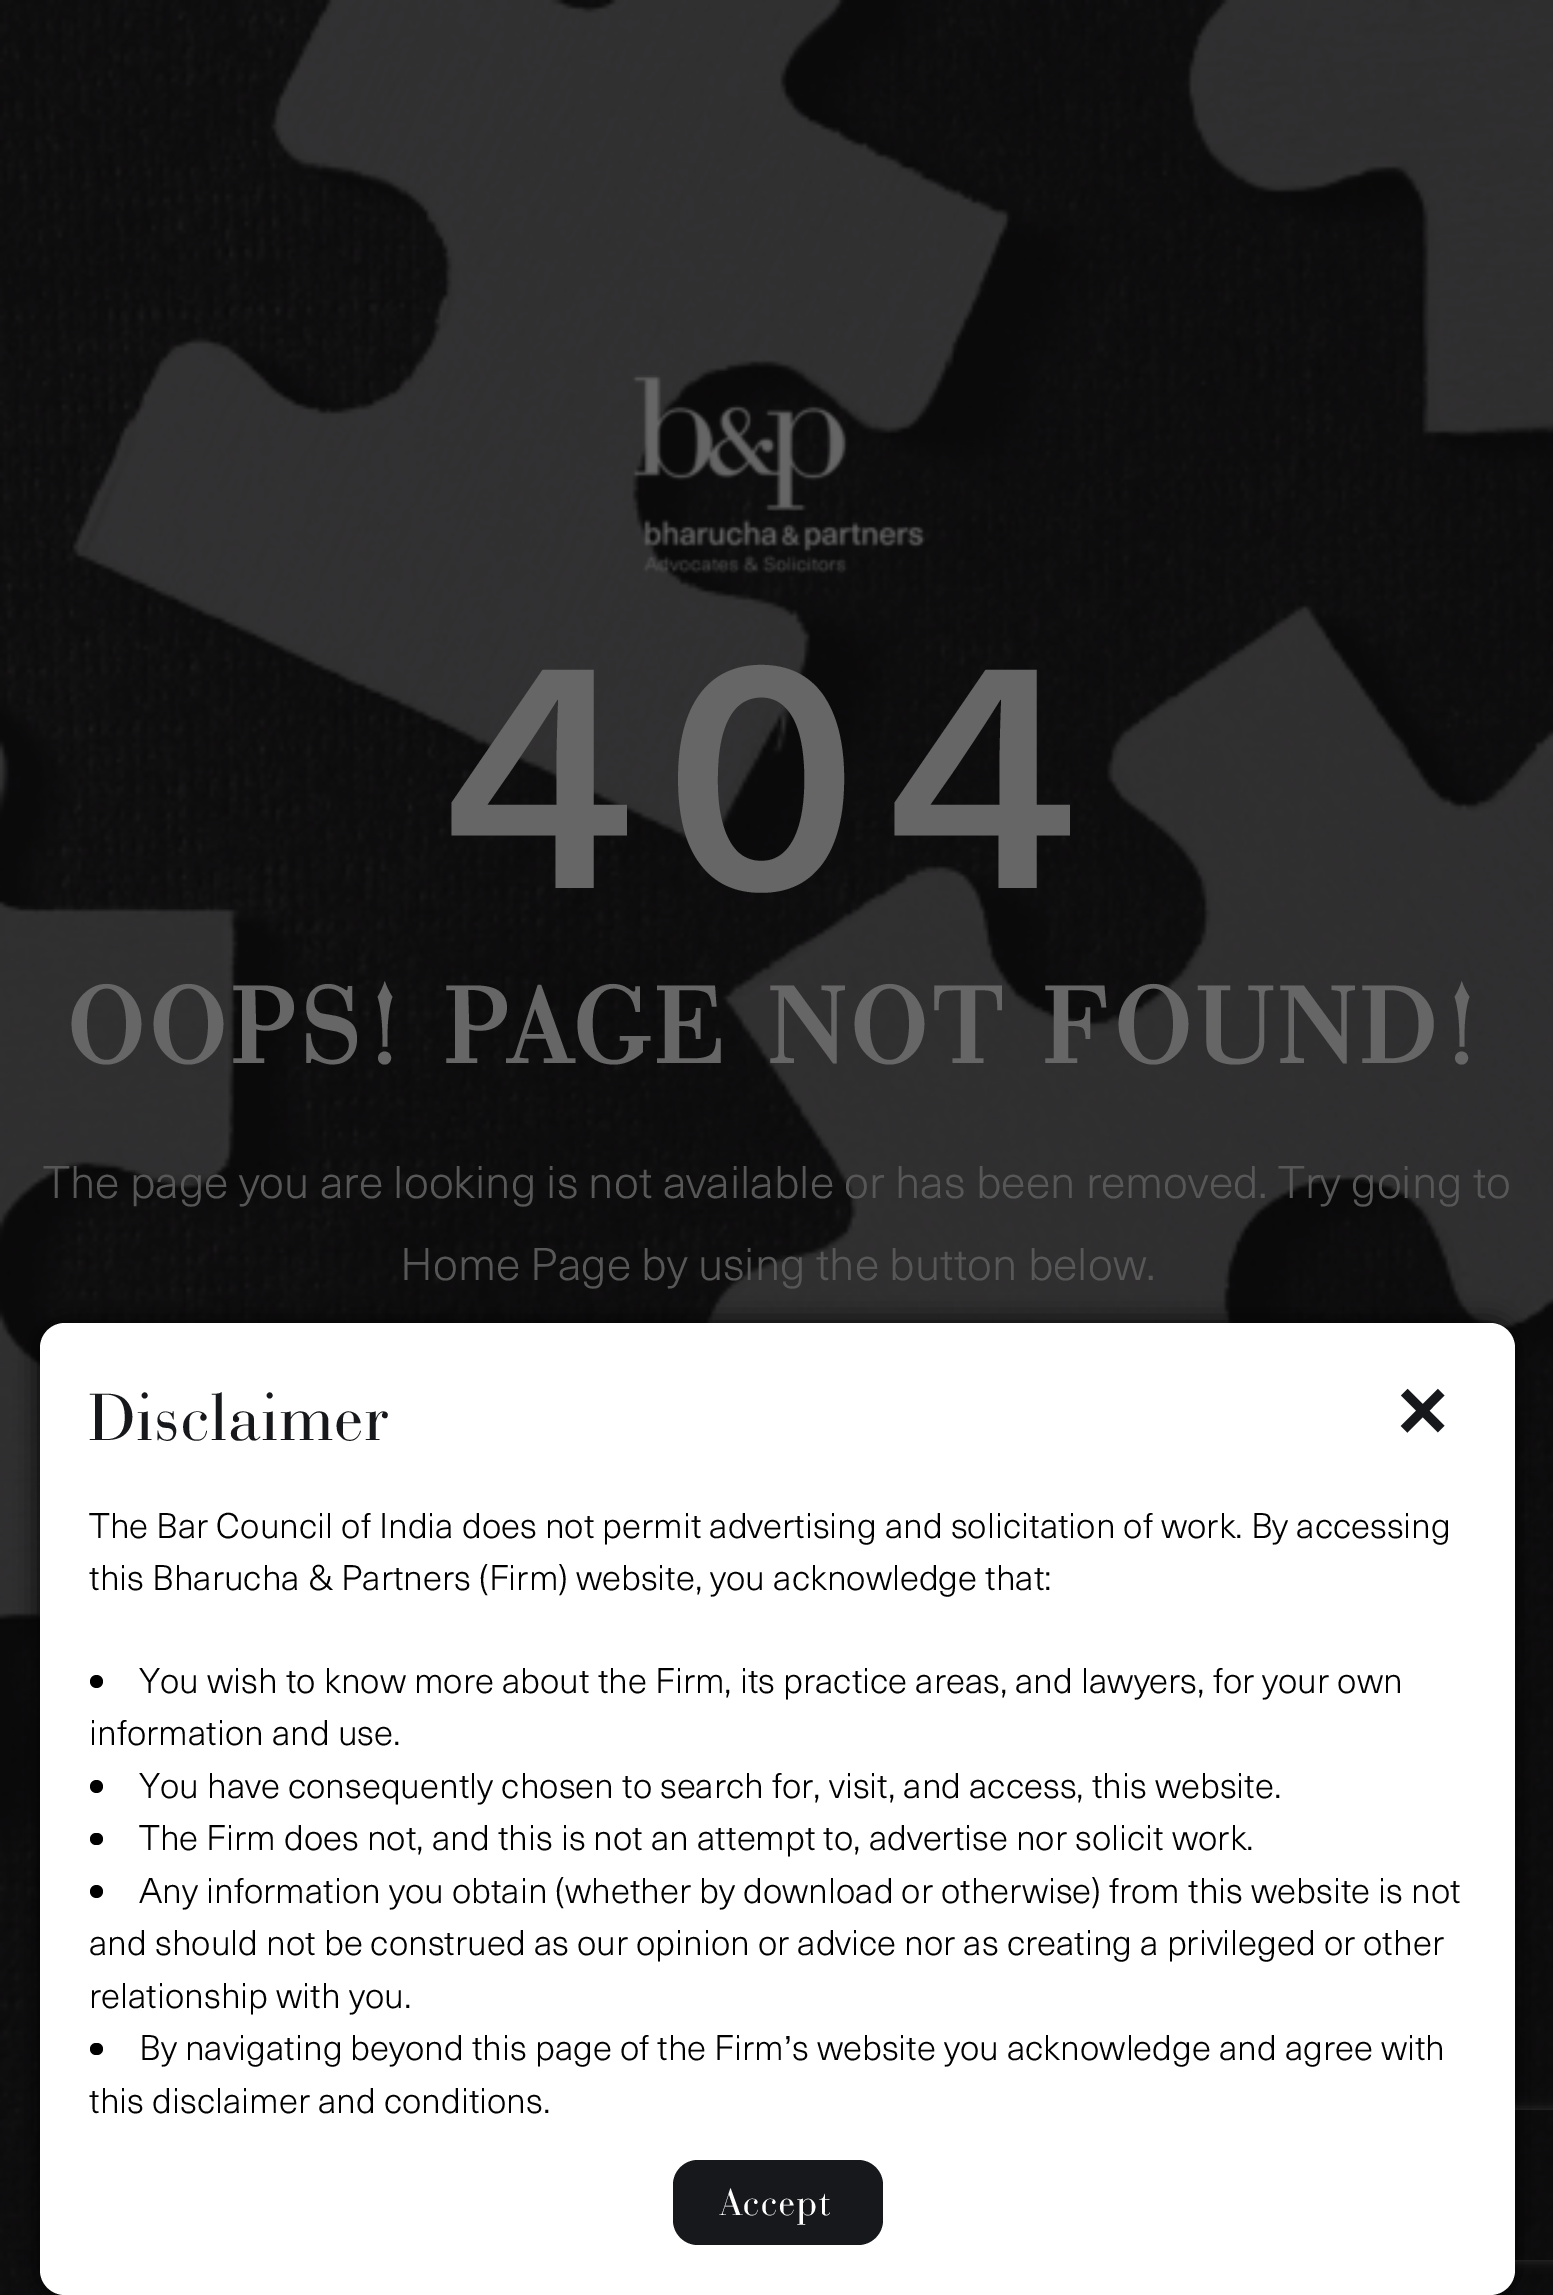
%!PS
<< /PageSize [1553 2295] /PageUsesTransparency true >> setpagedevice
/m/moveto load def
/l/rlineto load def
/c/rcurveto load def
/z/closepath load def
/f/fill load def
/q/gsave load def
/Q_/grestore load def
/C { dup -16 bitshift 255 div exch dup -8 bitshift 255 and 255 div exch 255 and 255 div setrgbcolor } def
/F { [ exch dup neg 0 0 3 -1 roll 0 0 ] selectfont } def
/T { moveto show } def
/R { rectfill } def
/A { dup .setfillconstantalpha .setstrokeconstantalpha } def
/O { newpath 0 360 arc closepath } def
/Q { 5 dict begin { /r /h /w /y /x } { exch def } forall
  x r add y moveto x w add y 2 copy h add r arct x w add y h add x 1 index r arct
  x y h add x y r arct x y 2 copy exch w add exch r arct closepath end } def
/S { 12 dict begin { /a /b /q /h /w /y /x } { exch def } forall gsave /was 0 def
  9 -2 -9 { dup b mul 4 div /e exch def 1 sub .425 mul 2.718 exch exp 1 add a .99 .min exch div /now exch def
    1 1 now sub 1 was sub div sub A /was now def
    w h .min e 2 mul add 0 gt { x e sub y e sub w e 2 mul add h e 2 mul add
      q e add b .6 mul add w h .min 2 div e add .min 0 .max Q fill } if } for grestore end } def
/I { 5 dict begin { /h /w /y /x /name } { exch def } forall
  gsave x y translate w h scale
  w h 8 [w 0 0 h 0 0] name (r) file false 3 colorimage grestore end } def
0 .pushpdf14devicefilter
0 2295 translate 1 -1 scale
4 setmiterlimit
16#FFFFFF C
0 0 1553 2295 R
(1.rgb) 0 0 1553 2295 I
(2.rgb) 632 375 293 199 I
/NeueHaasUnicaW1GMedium-Medium 325 F
16#666666 C
446 888 m 32.5 0 (404) ashow
/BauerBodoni-Bold 112.5 F
68 1063 m 7.9 0 (OOPS! PAGE NOT FOUND!) ashow
/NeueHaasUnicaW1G-Light 45 F
16#575757 C
(The page you are looking is not available or has been removed. Try going to) 43 1198 T
(Home Page by using the button below.) 400 1280 T
16#020202 C
40 1323 1475 972 25 12.5 1 S
q
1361 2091 m 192 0 l 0 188 l -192 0 l z 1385 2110 m 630 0 l 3 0 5 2 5 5 c 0 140 l 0 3 -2 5 -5 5 c -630 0 l -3 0 -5 -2 -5 -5 c 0 -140 l 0 -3 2 -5 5 -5 c z eoclip newpath
16#333333 C
1380 2110 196 150 5 6 1 S
Q_
16#FFFFFF C
40 1323 1475 972 25 Q f
/BauerBodoni-Regular 70 F
16#16181B C
89 1440 m 2.5 0 (Disclaimer) ashow
/LiberationSans-Bold 88 F
(×) 1397 1440 T
/NeueHaasUnicaW1G-Light 35 F
16#000000 C
(The Bar Council of India does not permit advertising and solicitation of work. By accessing) 89 1538 T
(this Bharucha & Partners \(Firm\) website, you acknowledge that:) 89 1590 T
96.5 1681.5 6.5 O f
(You wish to know more about the Firm, its practice areas, and lawyers, for your own) 139 1693 T
(information and use.) 89 1745 T
96.5 1786.5 6.5 O f
(You have consequently chosen to search for, visit, and access, this website.) 139 1798 T
90 1833 13 12 6 Q f
(The Firm does not, and this is not an attempt to, advertise nor solicit work.) 139 1850 T
96.5 1891.5 6.5 O f
(Any information you obtain \(whether by download or otherwise\) from this website is not) 139 1903 T
(and should not be construed as our opinion or advice nor as creating a privileged or other) 89 1955 T
(relationship with you.) 89 2008 T
(By navigating beyond this page of the Firm s website you acknowledge and agree with) 139 2060 T
/LiberationSans-Regular 35 F
(’) 784 2060 T
90 2043 13 12 6 Q f
/NeueHaasUnicaW1G-Light 35 F
(this disclaimer and conditions.) 89 2113 T
16#16181B C
673 2160 210 85 25 Q f
/BauerBodoni-Regular 40 F
16#FFFFFF C
722 2215 m 2.5 0 (Accept) ashow
.poppdf14devicefilter showpage
